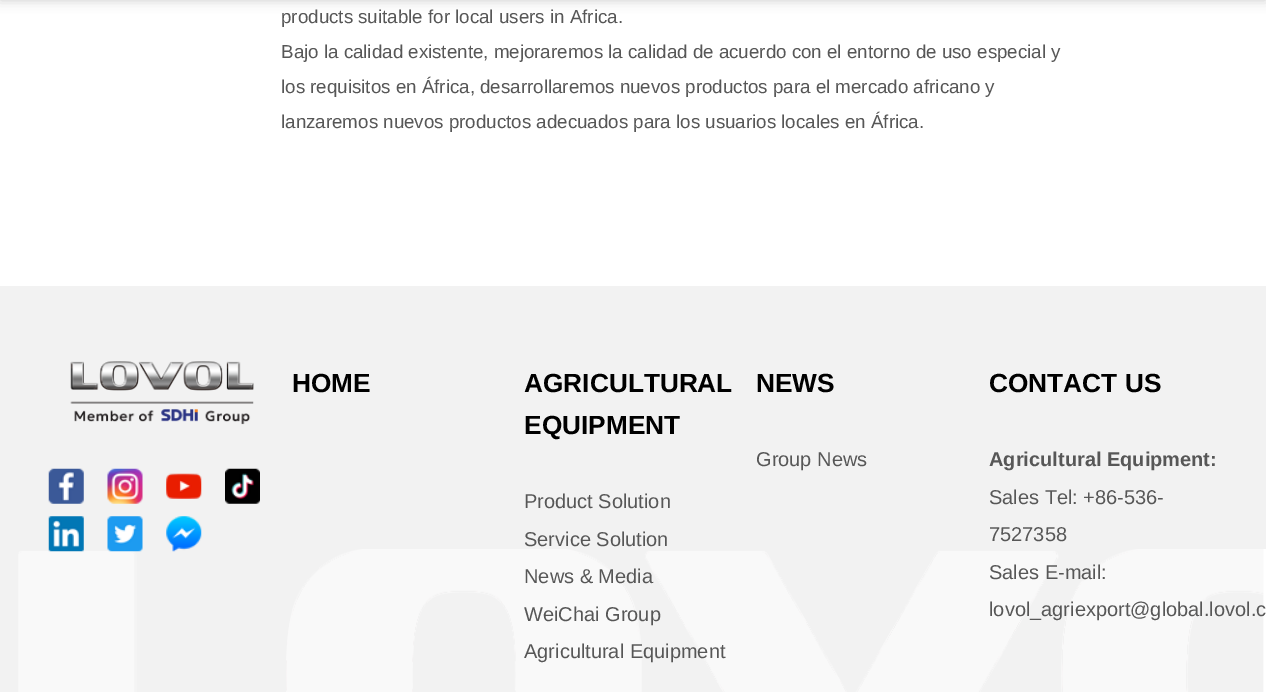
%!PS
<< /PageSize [1266 692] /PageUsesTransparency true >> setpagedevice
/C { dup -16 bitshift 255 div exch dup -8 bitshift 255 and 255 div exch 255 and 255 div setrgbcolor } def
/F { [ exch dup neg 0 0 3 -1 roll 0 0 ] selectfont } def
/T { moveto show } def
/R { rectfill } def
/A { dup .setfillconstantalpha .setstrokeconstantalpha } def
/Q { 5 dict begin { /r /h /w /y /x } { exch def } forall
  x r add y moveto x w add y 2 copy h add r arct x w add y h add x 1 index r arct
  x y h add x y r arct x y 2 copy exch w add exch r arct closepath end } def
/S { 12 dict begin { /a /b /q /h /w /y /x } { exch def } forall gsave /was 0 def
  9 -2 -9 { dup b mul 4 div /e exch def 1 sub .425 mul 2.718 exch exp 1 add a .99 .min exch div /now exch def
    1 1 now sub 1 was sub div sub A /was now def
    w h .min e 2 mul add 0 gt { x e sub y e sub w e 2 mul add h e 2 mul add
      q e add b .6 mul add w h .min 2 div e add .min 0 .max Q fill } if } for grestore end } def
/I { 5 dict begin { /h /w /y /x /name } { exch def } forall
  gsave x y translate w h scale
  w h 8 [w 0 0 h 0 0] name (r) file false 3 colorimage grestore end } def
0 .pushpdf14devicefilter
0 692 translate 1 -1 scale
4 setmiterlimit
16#FFFFFF C
0 0 1266 692 R
16#000000 C
0 -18 1266 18 0 6 .2 S
/LiberationSans-Regular 18.75 F
16#575757 C
(products suitable for local users in Africa.) 281 23 T
(Bajo la calidad existente, mejoraremos la calidad de acuerdo con el entorno de uso especial y) 281 58 T
(los requisitos en África, desarrollaremos nuevos productos para el mercado africano y) 281 93 T
(lanzaremos nuevos productos adecuados para los usuarios locales en África.) 281 128 T
16#F2F2F2 C
0 286 1266 406 R
(1.rgb) 70 361 184 64 I
(2.rgb) 48 468 36 36 I
(3.rgb) 107 468 36 36 I
(4.rgb) 166 473 36 26 I
(5.rgb) 225 468 35 36 I
(9.rgb) 18 549 1248 143 I
(6.rgb) 48 516 36 36 I
(7.rgb) 107 516 36 36 I
(8.rgb) 166 516 36 36 I
/LiberationSans-Bold 26.25 F
16#000000 C
(HOME) 292 392 T
(AGRICULTURAL) 524 392 T
(EQUIPMENT) 524 434 T
/LiberationSans-Regular 20 F
16#575757 C
(Product Solution) 524 508 T
(Service Solution) 524 546 T
(News & Media) 524 583 T
(WeiChai Group) 524 621 T
(Agricultural Equipment) 524 658 T
/LiberationSans-Bold 26.25 F
16#000000 C
(NEWS) 756 392 T
/LiberationSans-Regular 20 F
16#575757 C
(Group News) 756 466 T
/LiberationSans-Bold 26.25 F
16#000000 C
(CONTACT US) 989 392 T
/LiberationSans-Bold 20 F
16#575757 C
(Agricultural Equipment:) 989 466 T
/LiberationSans-Regular 20 F
(Sales Tel: +86-536-) 989 504 T
(7527358) 989 541 T
(Sales E-mail:) 989 579 T
(lovol_agriexport@global.lovol.c) 989 616 T
.poppdf14devicefilter showpage
